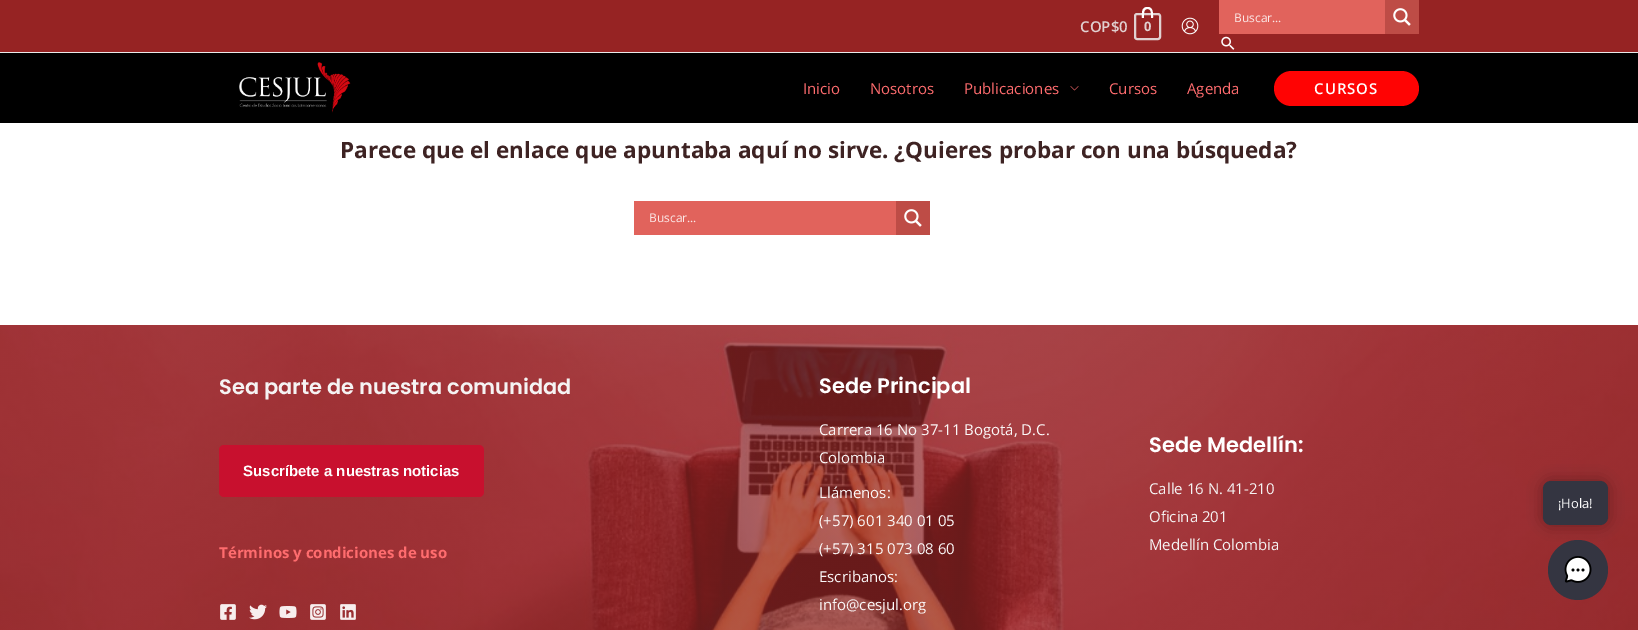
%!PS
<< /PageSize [1638 630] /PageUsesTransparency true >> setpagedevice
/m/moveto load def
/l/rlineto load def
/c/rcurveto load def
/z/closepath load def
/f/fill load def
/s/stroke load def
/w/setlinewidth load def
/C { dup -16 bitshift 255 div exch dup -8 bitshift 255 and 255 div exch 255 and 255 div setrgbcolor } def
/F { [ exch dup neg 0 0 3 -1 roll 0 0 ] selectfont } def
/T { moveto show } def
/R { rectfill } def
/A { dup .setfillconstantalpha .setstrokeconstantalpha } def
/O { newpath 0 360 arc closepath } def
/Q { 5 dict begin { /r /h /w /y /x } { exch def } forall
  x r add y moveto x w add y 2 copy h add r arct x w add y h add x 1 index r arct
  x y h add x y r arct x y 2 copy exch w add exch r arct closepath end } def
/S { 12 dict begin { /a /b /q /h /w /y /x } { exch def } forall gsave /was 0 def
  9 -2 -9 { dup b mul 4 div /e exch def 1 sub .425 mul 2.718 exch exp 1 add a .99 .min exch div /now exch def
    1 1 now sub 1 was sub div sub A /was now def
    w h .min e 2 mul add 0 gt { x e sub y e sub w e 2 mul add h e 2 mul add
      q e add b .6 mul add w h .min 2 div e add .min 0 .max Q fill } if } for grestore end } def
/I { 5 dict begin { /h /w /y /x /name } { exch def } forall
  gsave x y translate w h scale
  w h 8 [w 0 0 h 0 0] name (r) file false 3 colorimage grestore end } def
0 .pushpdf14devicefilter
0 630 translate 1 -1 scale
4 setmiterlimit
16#FFFFFF C
0 0 1638 630 R
16#962323 C
0 0 1638 52 R
16#EAEAEA C
0 52 1638 1 R
/OpenSans-SemiBold 15 F
16#E1D1D1 C
(COP$0) 1080 32 T
2 w
1135 14 25 25 2 Q s
16#FFFFFF C
1147.5 7 m 6 0 5.5 6.5 5.5 11 c -11 0 l 0 -4.5 -1 -11 5.5 -11 c z 1147.5 9 m 4.5 0 3.5 6 3.5 9 c -7 0 l 0 -3 -1 -9 3.5 -9 c z eofill
/OpenSans-Bold 13 F
16#E1D1D1 C
(0) 1144 31 T
(1.rgb) 1181 17 18 18 I
16#E1635C C
1219 0 166 34 R
/OpenSans-Regular 12 F
16#FBE8E7 C
(Buscar...) 1234 22 T
16#BE4C46 C
1385 0 34 34 R
(2.rgb) 1393 8 18 18 I
(3.rgb) 1221 36 14 14 I
16#000000 C
0 53 1638 70 R
(4.rgb) 239 62 112 51 I
/OpenSans-Regular 15 F
16#FF6C6E C
(Inicio) 803 94 T
(Nosotros) 870 94 T
(Publicaciones) 964 94 T
(5.rgb) 1070 86 9 5 I
(Cursos) 1109 94 T
(Agenda) 1187 94 T
16#FF0303 C
1274 71 145 35 17.5 Q f
/OpenSans-SemiBold 15 F
16#FFFFFF C
1314 94 m 1 0 (CURSOS) ashow
/OpenSans-Bold 22.5 F
16#3E2323 C
(Parece que el enlace que apuntaba aquí no sirve. ¿Quieres probar con una búsqueda?) 340 158 T
16#E1635C C
634 201 262 34 R
/OpenSans-Regular 12 F
16#FBE8E7 C
(Buscar...) 649 222 T
16#BE4C46 C
896 201 34 34 R
(2.rgb) 904 209 18 18 I
(6.rgb) 0 325 1638 305 I
/Poppins-SemiBold 21 F
16#F5F3F3 C
(Sea parte de nuestra comunidad) 219 394 T
16#C8102E C
219 445 265 52 5 Q f
/LiberationSans-Bold 15 F
16#FFFFFF C
(Suscríbete a nuestras noticias) 243 476 T
/OpenSans-Bold 15 F
16#FF6C6E C
(Términos y condiciones de uso) 219 558 T
(7.rgb) 220 604 16 16 I
(8.rgb) 249 604 18 16 I
(9.rgb) 279 606 18 12 I
(10.rgb) 310 604 16 16 I
(11.rgb) 340 604 16 16 I
/Poppins-SemiBold 21 F
16#FFFFFF C
(Sede Principal) 819 393 T
/OpenSans-Regular 15 F
16#FBF8F8 C
(Carrera 16 No 37-11 Bogotá, D.C.) 819 435 T
(Colombia) 819 463 T
(Llámenos:) 819 498 T
(\(+57\) 601 340 01 05) 819 526 T
(\(+57\) 315 073 08 60) 819 554 T
(Escribanos:) 819 582 T
(info@cesjul.org) 819 610 T
/Poppins-SemiBold 21 F
16#FFFFFF C
(Sede Medellín:) 1149 452 T
/OpenSans-Regular 15 F
16#F5F3F3 C
(Calle 16 N. 41-210) 1149 494 T
(Oficina 201) 1149 522 T
(Medellín Colombia) 1149 550 T
16#000000 C
1543 481 65 44 8 7.5 .15 S
16#343541 C
1578 570 30 O f
16#000000 C
1543 481 65 44 8 7.5 .15 S
16#343541 C
1543 481 65 44 8 Q f
/OpenSans-Regular 13 F
16#FFFFFF C
(¡Hola!) 1558 508 T
(12.rgb) 1564 556 28 27 I
.poppdf14devicefilter showpage
